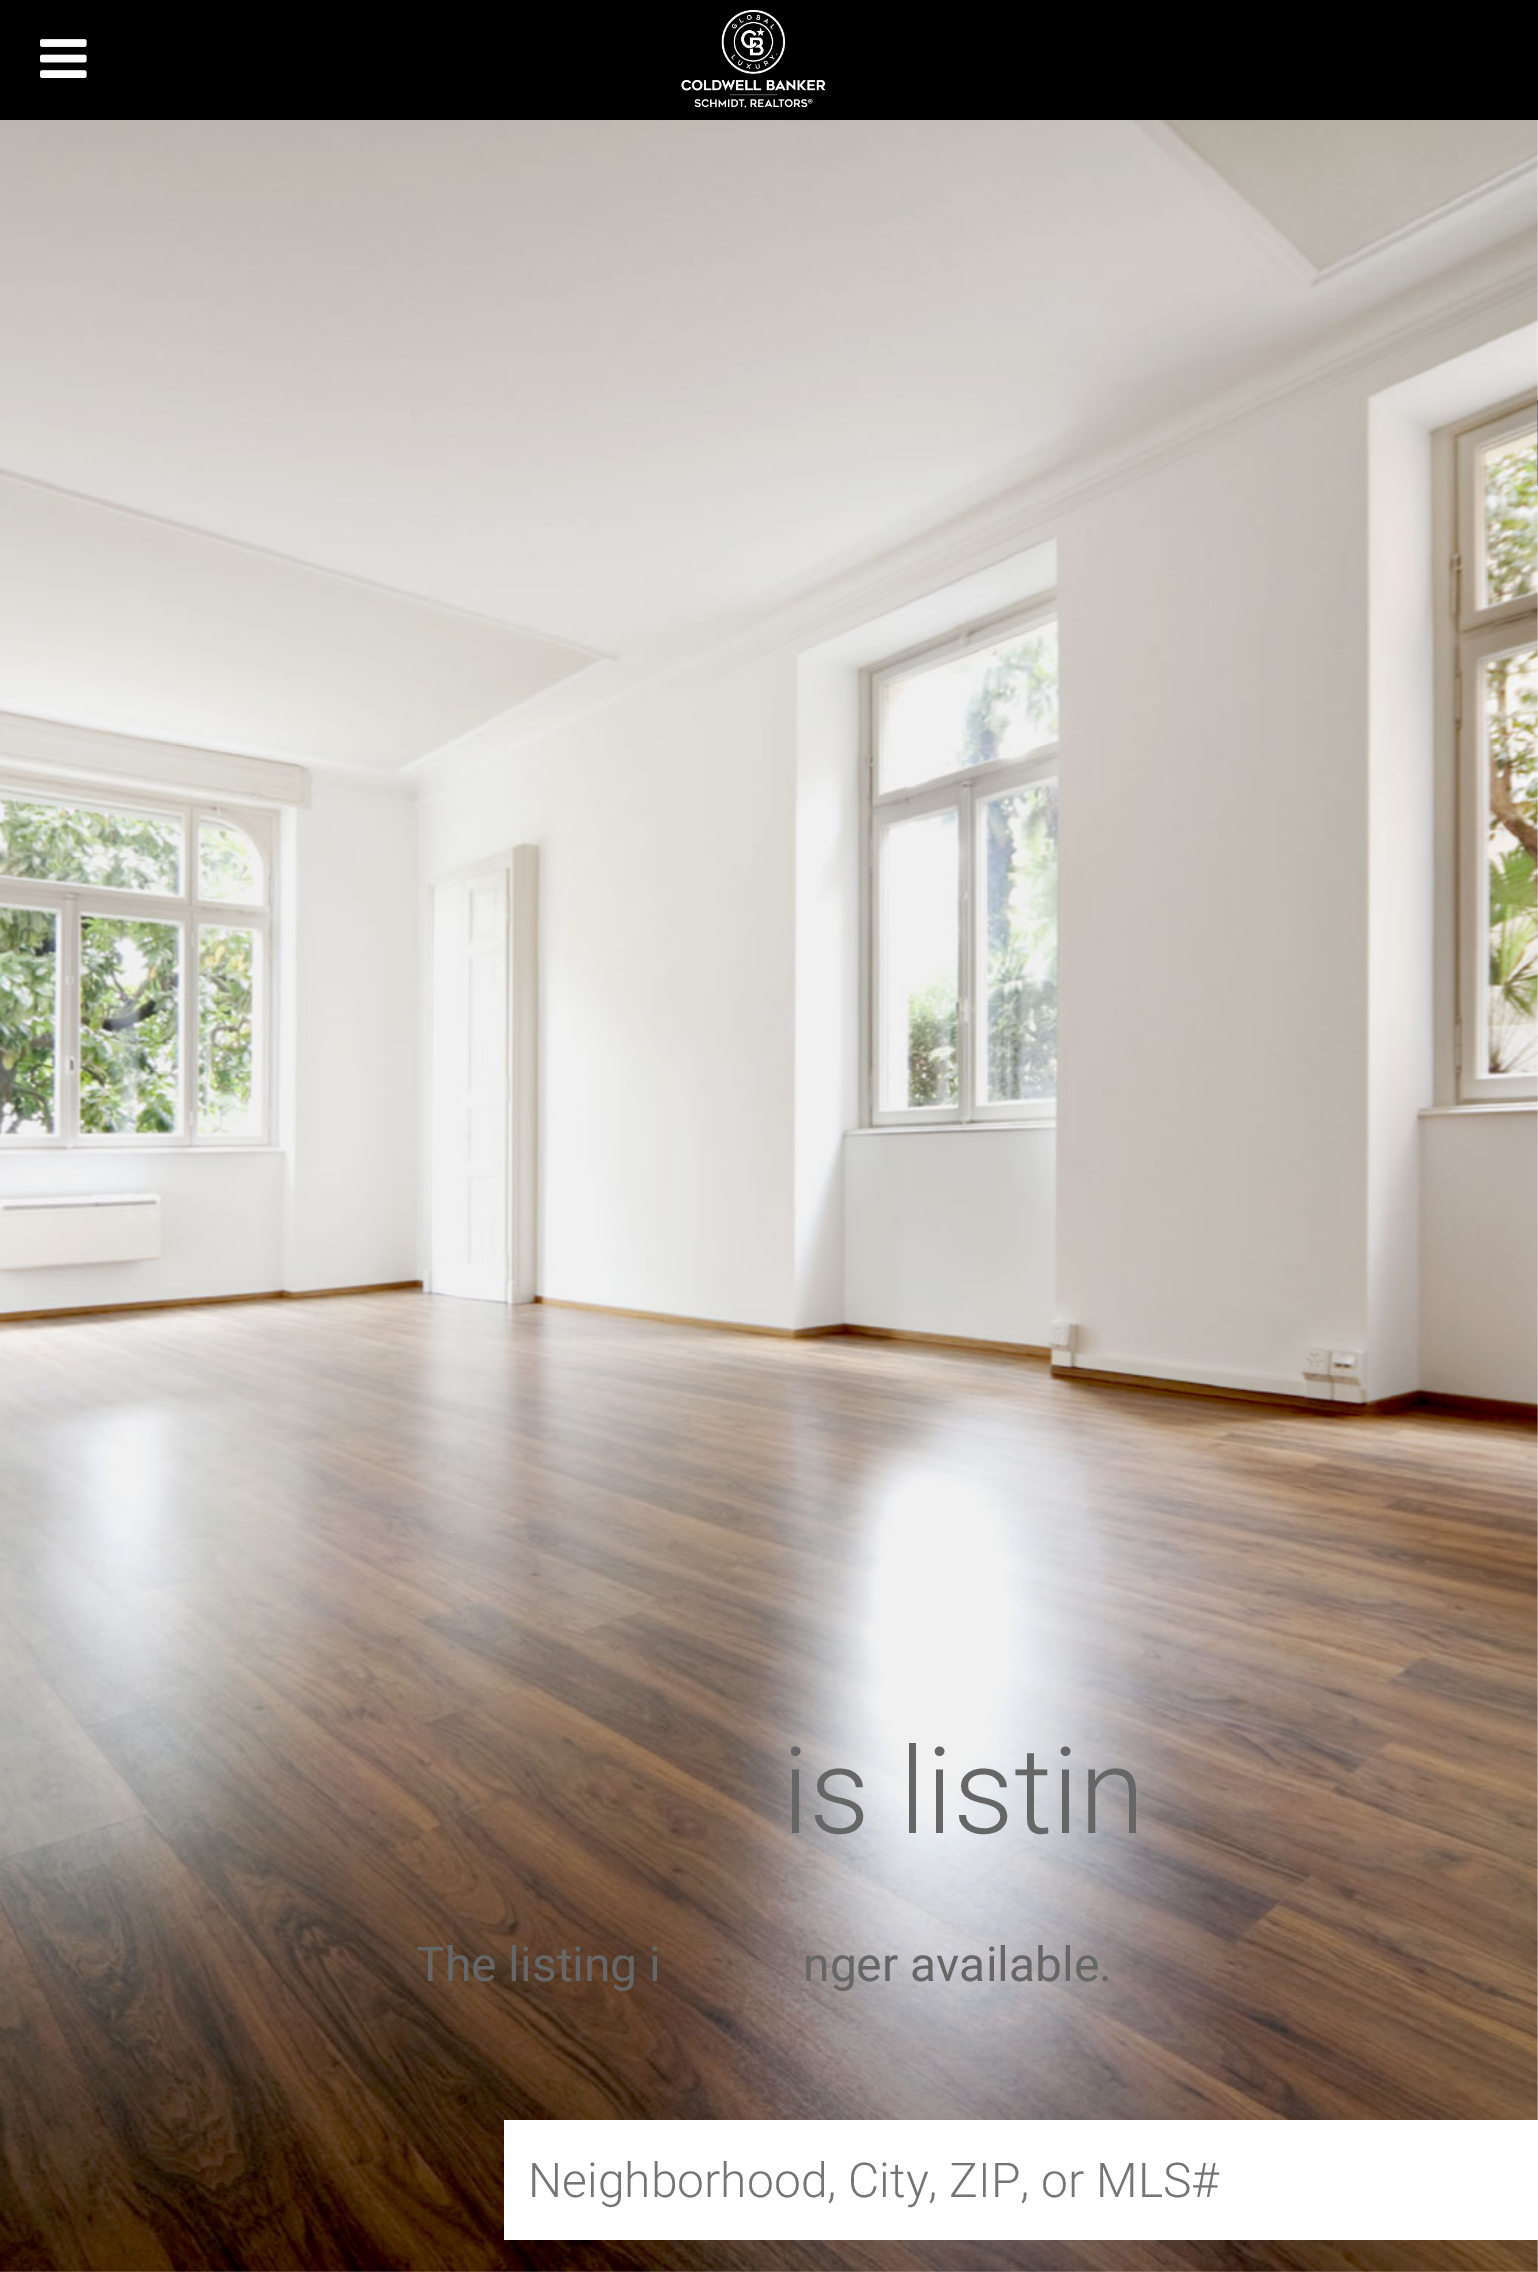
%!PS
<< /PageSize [1538 2272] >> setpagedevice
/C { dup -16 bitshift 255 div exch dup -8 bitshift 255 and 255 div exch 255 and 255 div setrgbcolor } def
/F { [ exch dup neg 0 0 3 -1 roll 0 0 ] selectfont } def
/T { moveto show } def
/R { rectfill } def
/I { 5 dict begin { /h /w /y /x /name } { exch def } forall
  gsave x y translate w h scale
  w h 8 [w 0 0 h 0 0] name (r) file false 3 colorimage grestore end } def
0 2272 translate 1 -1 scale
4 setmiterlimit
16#FFFFFF C
0 0 1538 2272 R
16#000000 C
0 0 1538 120 R
(1.rgb) 40 39 47 39 I
(2.rgb) 681 10 145 98 I
16#012169 C
1537 400 1 86 R
(3.rgb) 0 120 1538 2152 I
/Roboto-Light 120 F
16#666666 C
(is listin) 782 1833 T
/Roboto-Regular 48 F
(The listing i) 416 1981 T
(nger available.) 803 1981 T
16#FFFFFF C
504 2120 1034 120 R
/Roboto-Light 48 F
16#757575 C
(Neighborhood, City, ZIP, or MLS#) 528 2197 T
showpage
